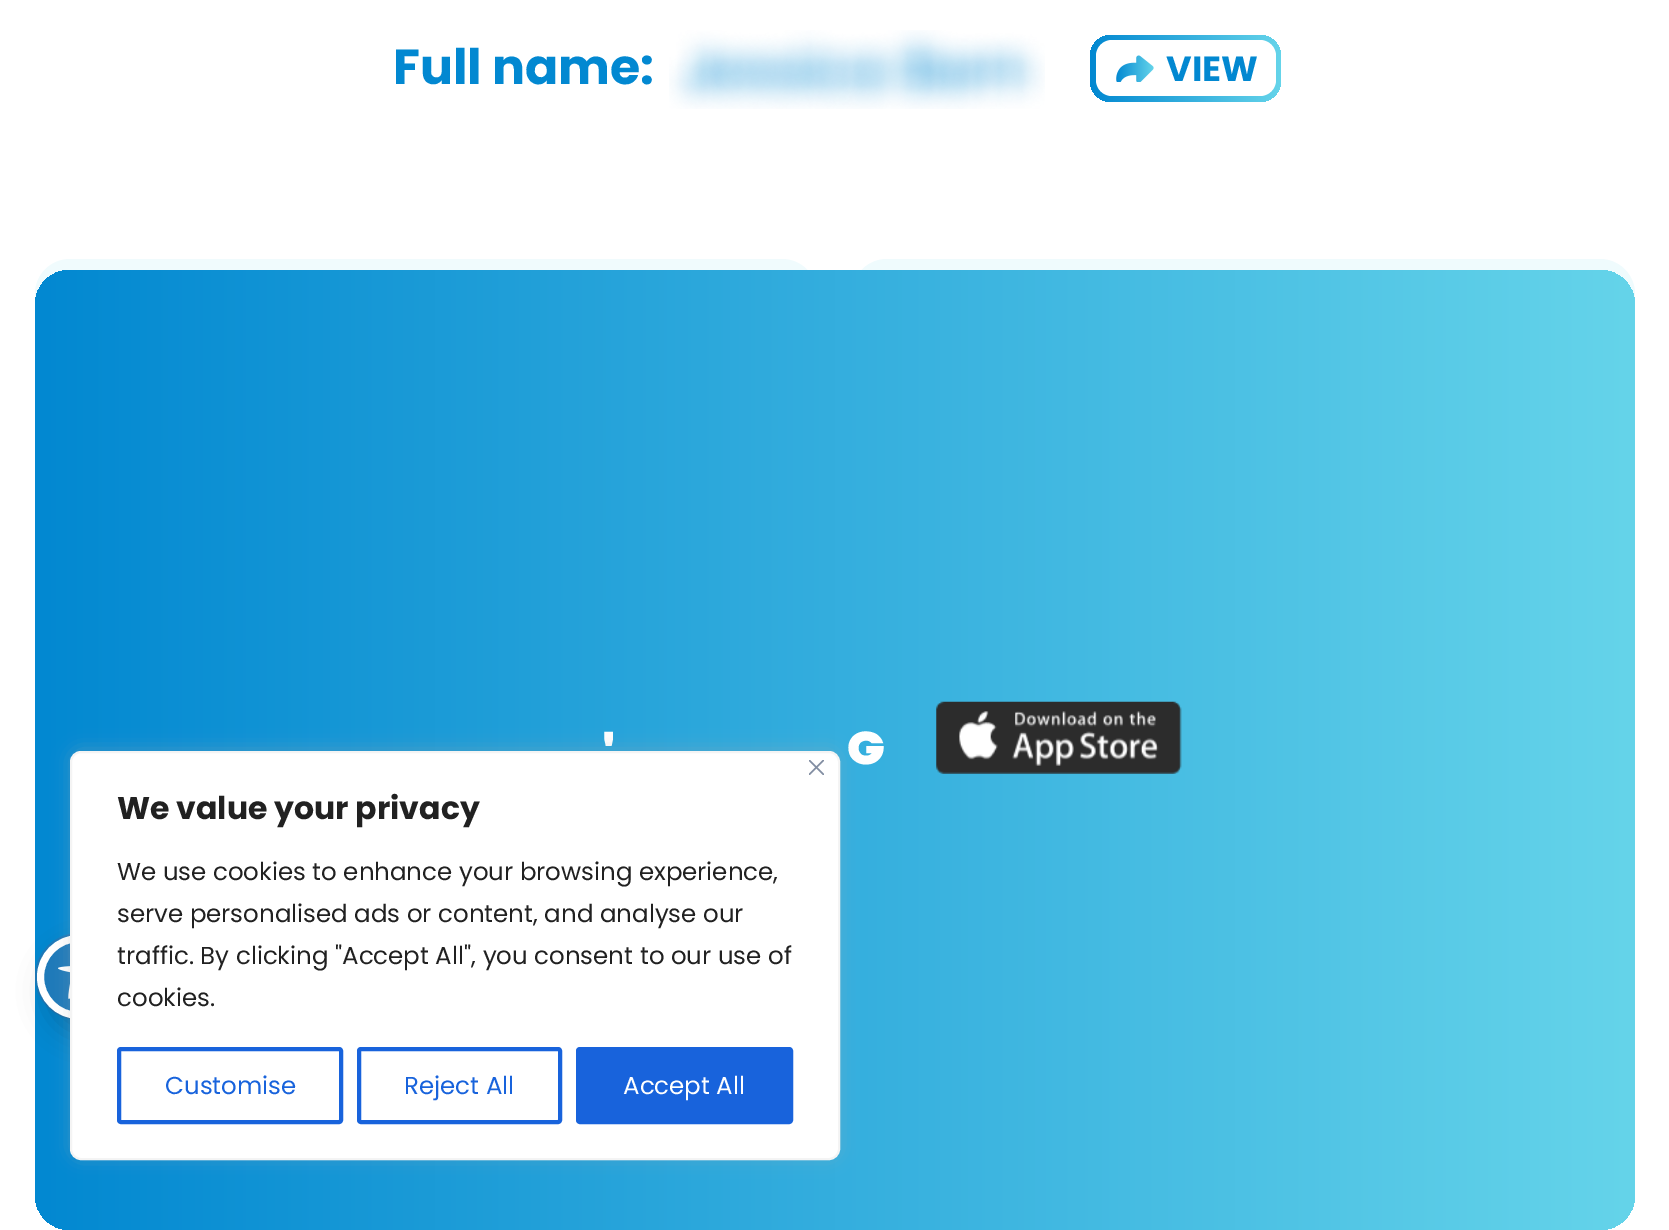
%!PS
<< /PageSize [1669 1230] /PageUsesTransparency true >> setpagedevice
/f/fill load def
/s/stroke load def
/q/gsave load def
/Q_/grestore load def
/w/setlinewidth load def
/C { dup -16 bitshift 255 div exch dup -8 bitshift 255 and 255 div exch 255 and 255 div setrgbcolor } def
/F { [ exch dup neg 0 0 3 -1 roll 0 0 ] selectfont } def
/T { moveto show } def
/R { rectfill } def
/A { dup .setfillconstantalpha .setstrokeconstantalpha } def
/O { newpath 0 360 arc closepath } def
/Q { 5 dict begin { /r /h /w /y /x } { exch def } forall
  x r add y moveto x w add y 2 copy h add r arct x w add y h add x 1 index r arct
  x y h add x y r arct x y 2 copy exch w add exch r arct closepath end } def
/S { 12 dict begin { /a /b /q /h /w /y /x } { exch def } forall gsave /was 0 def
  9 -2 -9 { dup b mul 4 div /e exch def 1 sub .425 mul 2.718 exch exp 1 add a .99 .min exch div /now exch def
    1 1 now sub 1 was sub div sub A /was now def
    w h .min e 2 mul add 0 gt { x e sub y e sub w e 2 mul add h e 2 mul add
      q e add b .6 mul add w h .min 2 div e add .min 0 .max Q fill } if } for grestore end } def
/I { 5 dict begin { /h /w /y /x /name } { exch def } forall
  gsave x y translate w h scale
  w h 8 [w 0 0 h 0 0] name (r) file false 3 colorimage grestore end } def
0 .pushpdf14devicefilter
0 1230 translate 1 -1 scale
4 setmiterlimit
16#FFFFFF C
0 0 1669 1230 R
/Poppins-Bold 49 F
16#0288D1 C
(Full name:) 393 84 T
(1.rgb) 669 30 376 79 I
q 1090 35 191 67 21 Q clip newpath
<< /ShadingType 2 /ColorSpace /DeviceRGB /Coords [1090 68 1281 68] /Extend [true true] /Function << /FunctionType 2 /Domain [0 1] /C0 [.008 .533 .82] /C1 [.396 .831 .918] /N 1 >> >> shfill Q_
16#FFFFFF C
1096 40 180 56 16 Q f
(2.rgb) 1116 55 38 27 I
/Poppins-Bold 35 F
16#0288D1 C
(VIEW) 1166 81 T
16#F0FBFD C
35 259 782 158 35 Q f
0.1 A
16#65D4EA C
852 259 783 158 35 Q f
1 A
q 35 270 1600 960 35 Q clip newpath
<< /ShadingType 2 /ColorSpace /DeviceRGB /Coords [35 750 1635 750] /Extend [true true] /Function << /FunctionType 2 /Domain [0 1] /C0 [.008 .533 .82] /C1 [.396 .831 .918] /N 1 >> >> shfill Q_
/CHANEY-Regular 46 F
16#FFFFFF C
(') 602 764 T
(G) 847 764 T
(3.rgb) 936 701 246 73 I
16#1E7AB9 C
2 w
36 934 86 85 42.5 Q s
16#000000 C
47 949 84 84 42 14 .2 S
16#1E7AB9 C
79 977 38.5 O q f Q_
16#FFFFFF C
7 w
s
(4.rgb) 58 966 12 33 I
16#ACABAB C
70 749 770 410 11 9 .3 S
16#FFFFFF C
71 752 768 407 10 Q q f Q_
16#F4F4F4 C
2 w
s
(5.rgb) 809 760 15 15 I
/Poppins-Bold 31.5 F
16#212121 C
(We value your privacy) 117 819 T
/Poppins-Regular 24.5 F
(We use cookies to enhance your browsing experience,) 117 880 T
(serve personalised ads or content, and analyse our) 117 922 T
(traffic. By clicking "Accept All", you consent to our use of) 117 964 T
(cookies.) 117 1006 T
16#1863DC C
4 w
119 1049 222 73 2 Q s
(Customise) 165 1094 T
359 1049 201 73 2 Q s
(Reject All) 404 1094 T
578 1049 213 73 2 Q q f Q_
s
16#FFFFFF C
(Accept All) 623 1094 T
.poppdf14devicefilter showpage
